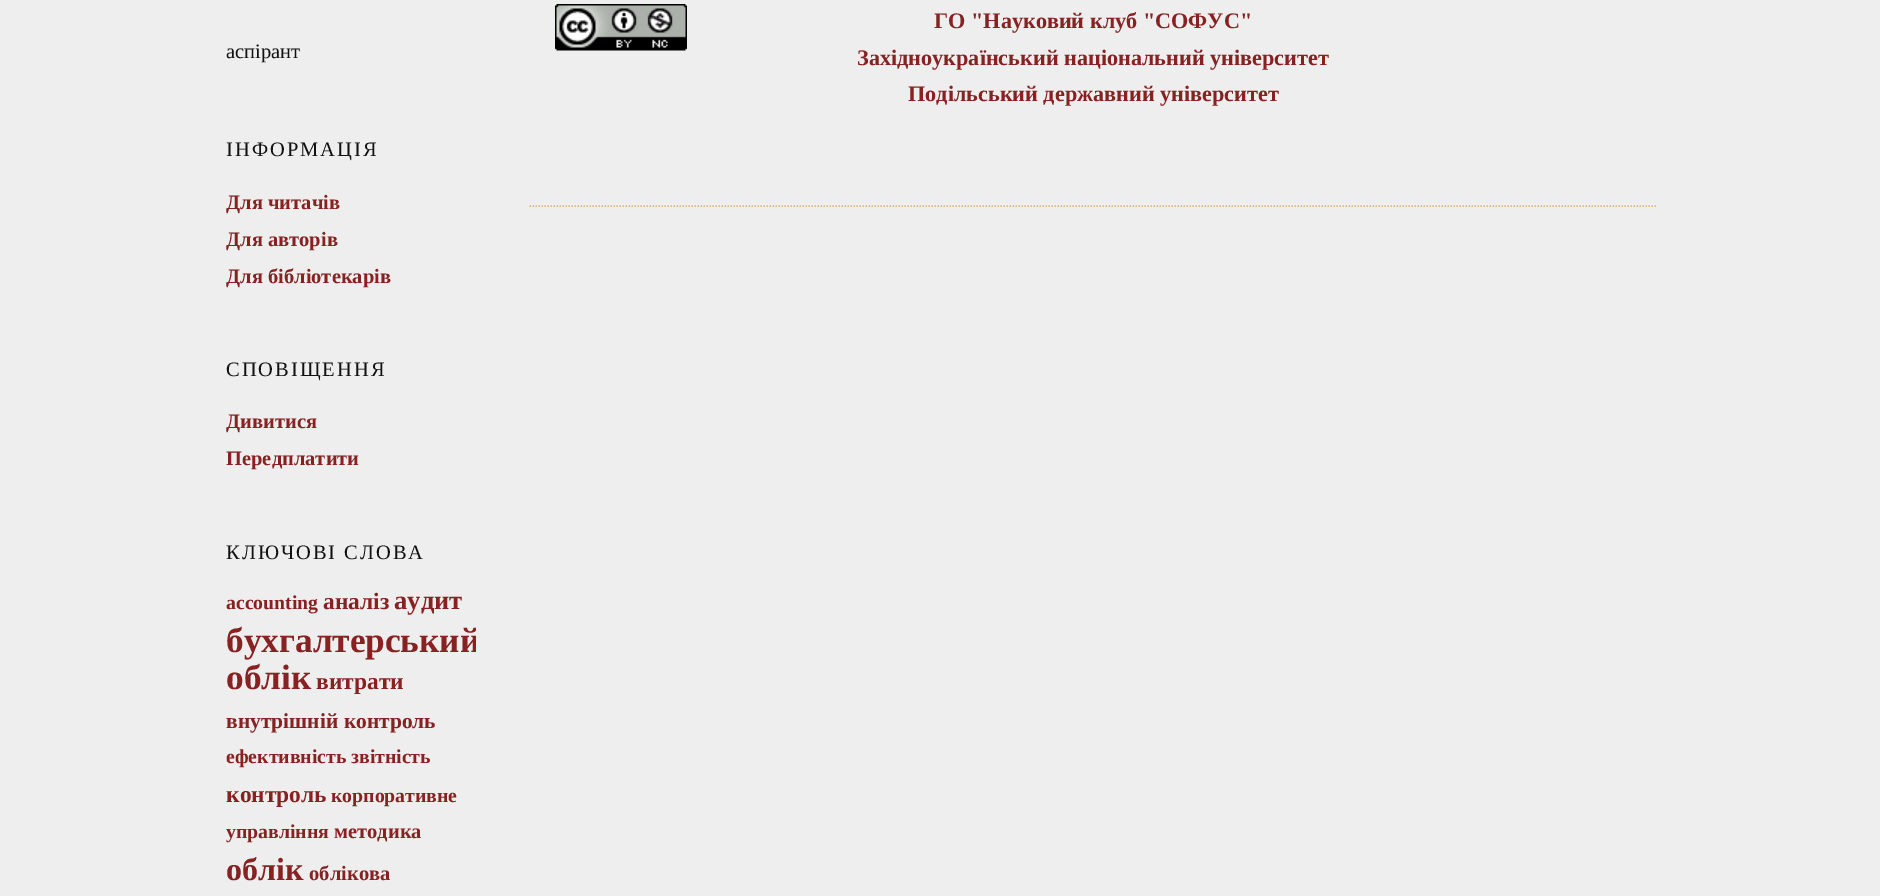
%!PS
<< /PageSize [1880 896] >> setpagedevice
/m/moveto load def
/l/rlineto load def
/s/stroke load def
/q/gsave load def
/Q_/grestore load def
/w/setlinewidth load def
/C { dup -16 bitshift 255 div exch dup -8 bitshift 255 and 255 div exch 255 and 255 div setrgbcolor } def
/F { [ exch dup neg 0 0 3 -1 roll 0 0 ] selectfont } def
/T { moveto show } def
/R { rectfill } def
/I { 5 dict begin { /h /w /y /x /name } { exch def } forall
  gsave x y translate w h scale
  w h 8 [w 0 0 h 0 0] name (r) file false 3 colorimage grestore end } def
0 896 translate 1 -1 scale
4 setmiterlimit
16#EEEEEE C
0 0 1880 896 R
/LiberationSerif-Regular 20.5 F
16#111111 C
(аспірант) 226 58 T
226 156 m 2 0 (ІНФОРМАЦІЯ) ashow
/LiberationSerif-Bold 20.5 F
16#882222 C
(Для читачів) 226 209 T
(Для авторів) 226 246 T
(Для бібліотекарів) 226 283 T
/LiberationSerif-Regular 20.5 F
16#111111 C
226 376 m 2 0 (СПОВІЩЕННЯ) ashow
/LiberationSerif-Bold 20.5 F
16#882222 C
(Дивитися) 226 428 T
(Передплатити) 226 465 T
/LiberationSerif-Regular 20.5 F
16#111111 C
226 559 m 2 0 (КЛЮЧОВІ СЛОВА) ashow
/LiberationSerif-Bold 19.75 F
16#882222 C
(accounting) 226 609 T
/LiberationSerif-Bold 23.5 F
(аналіз) 323 609 T
/LiberationSerif-Bold 26.5 F
(аудит) 394 609 T
q
225 0 251 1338 rectclip
/LiberationSerif-Bold 35.25 F
(бухгалтерський) 226 652 T
Q_
/LiberationSerif-Bold 35.25 F
(облік) 226 689 T
/LiberationSerif-Bold 23.5 F
(витрати) 316 689 T
/LiberationSerif-Bold 21.5 F
(внутрішній контроль) 226 728 T
/LiberationSerif-Bold 19.75 F
(ефективність звітність) 226 763 T
/LiberationSerif-Bold 23.5 F
(контроль) 226 802 T
/LiberationSerif-Bold 19.75 F
(корпоративне) 331 802 T
(управління) 226 838 T
/LiberationSerif-Bold 20.5 F
(методика) 334 838 T
/LiberationSerif-Bold 32 F
(облік) 226 880 T
/LiberationSerif-Bold 20.5 F
(облікова) 309 880 T
16#DEB887 C
1.5 w
[1.5 1.5] 0 setdash
529.5 206 m 1126.5 0 l s
(1.rgb) 555 4 132 47 I
/LiberationSerif-Bold 22.2 F
16#882222 C
(ГО "Науковий клуб "СОФУС") 934 28 T
(Західноукраїнський національний університет) 857 65 T
(Подільський державний університет) 908 101 T
showpage
